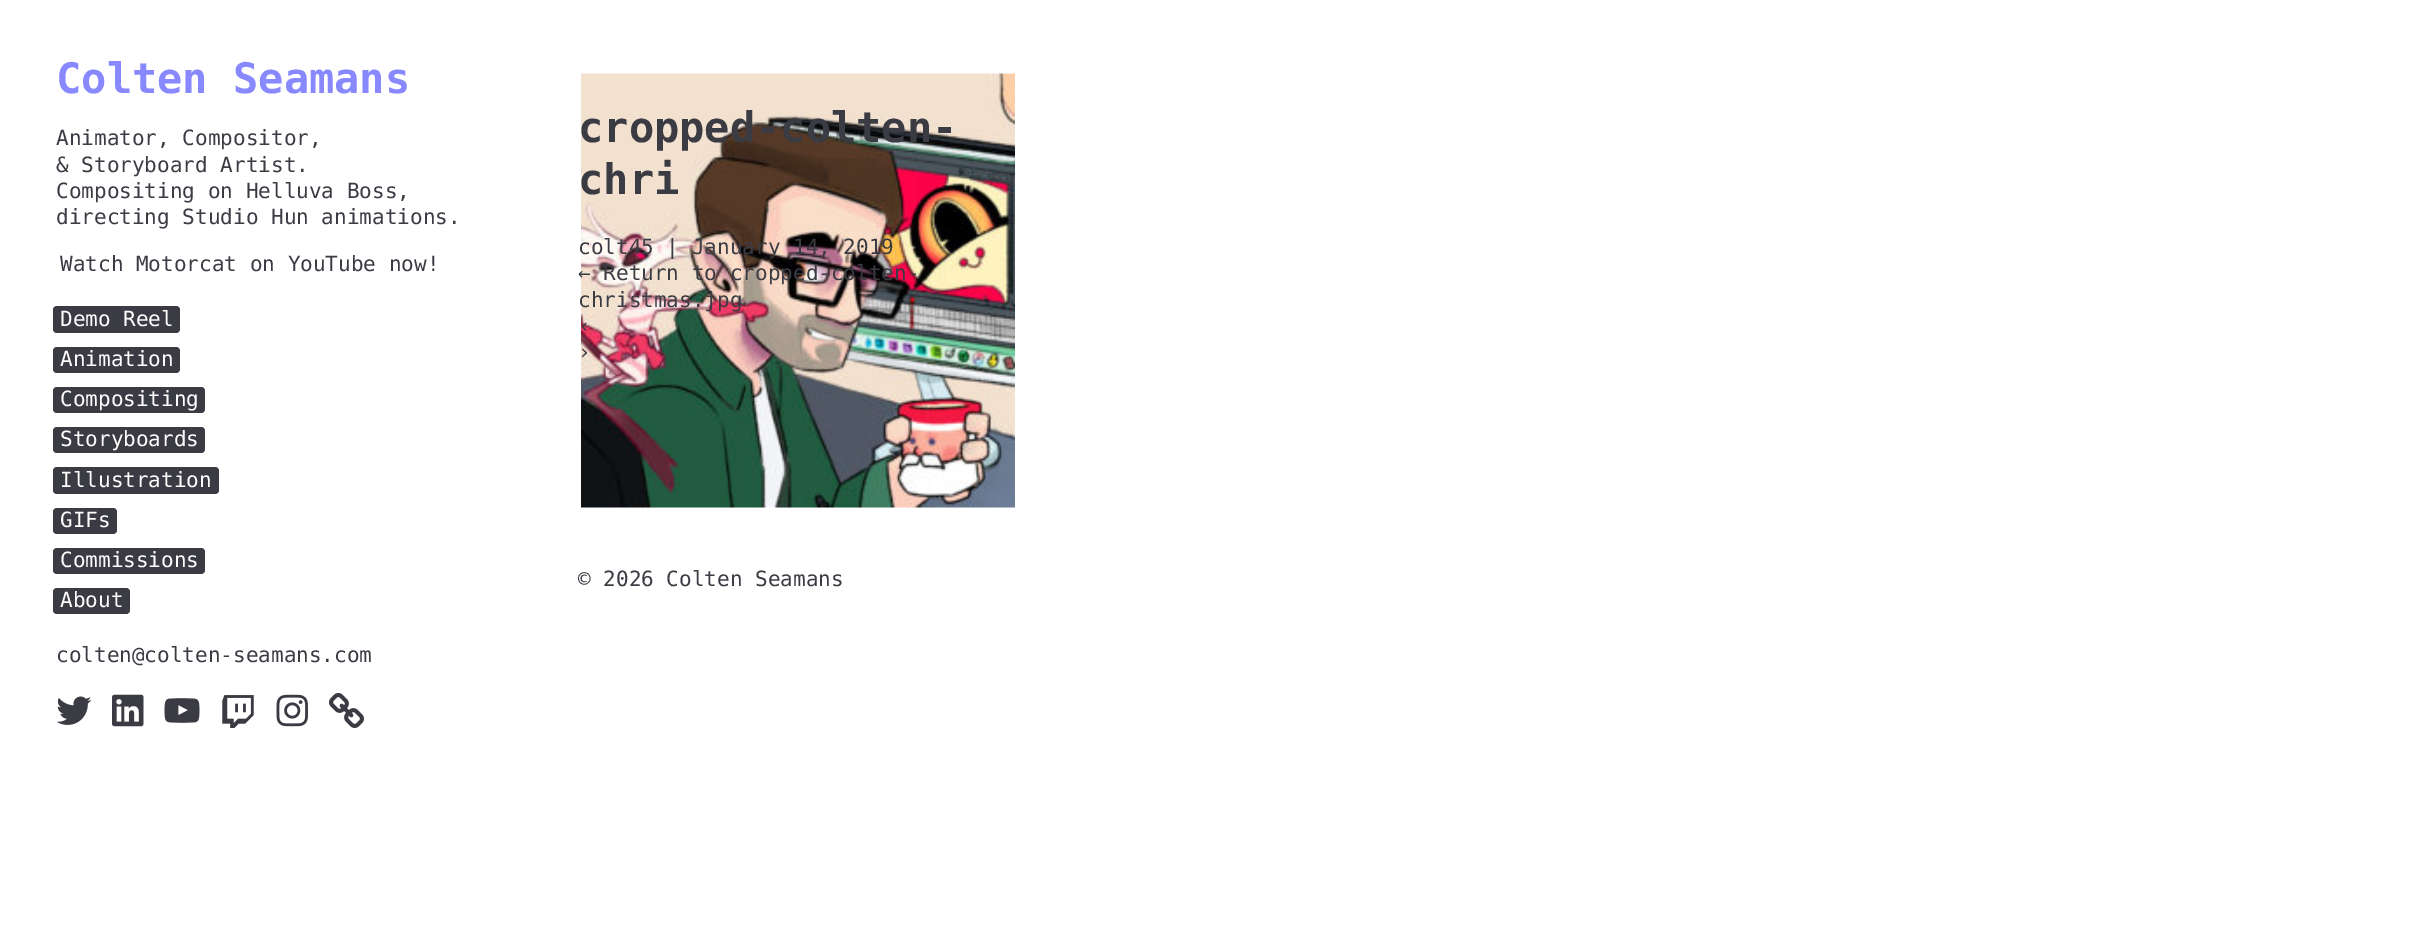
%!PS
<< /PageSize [2410 927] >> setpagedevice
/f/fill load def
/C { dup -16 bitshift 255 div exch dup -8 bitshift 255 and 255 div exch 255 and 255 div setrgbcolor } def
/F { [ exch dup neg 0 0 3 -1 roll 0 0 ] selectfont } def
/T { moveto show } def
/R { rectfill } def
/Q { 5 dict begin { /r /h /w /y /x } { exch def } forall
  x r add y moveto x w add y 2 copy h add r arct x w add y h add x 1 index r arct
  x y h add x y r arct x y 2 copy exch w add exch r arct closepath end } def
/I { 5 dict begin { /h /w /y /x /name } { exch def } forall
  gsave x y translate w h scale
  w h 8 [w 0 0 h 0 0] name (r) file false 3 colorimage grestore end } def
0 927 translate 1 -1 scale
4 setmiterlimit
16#FFFFFF C
0 0 2410 927 R
/DejaVuSansMono-Bold 42 F
16#8989FF C
(Colten Seamans) 56 93 T
/DejaVuSansMono-Regular 21 F
16#3B3B44 C
(Animator, Compositor,) 56 145 T
(& Storyboard Artist.) 56 172 T
(Compositing on Helluva Boss,) 56 198 T
(directing Studio Hun animations.) 56 224 T
(Watch Motorcat on YouTube now!) 60 271 T
53 306 127 27 4 Q f
16#FFFFFF C
(Demo Reel) 60 326 T
16#3B3B44 C
53 347 127 26 4 Q f
16#FFFFFF C
(Animation) 60 366 T
16#3B3B44 C
53 387 152 26 4 Q f
16#FFFFFF C
(Compositing) 60 406 T
16#3B3B44 C
53 427 152 26 4 Q f
16#FFFFFF C
(Storyboards) 60 446 T
16#3B3B44 C
53 467 166 27 4 Q f
16#FFFFFF C
(Illustration) 60 487 T
16#3B3B44 C
53 508 64 26 4 Q f
16#FFFFFF C
(GIFs) 60 527 T
16#3B3B44 C
53 548 152 26 4 Q f
16#FFFFFF C
(Commissions) 60 567 T
16#3B3B44 C
53 588 77 26 4 Q f
16#FFFFFF C
(About) 60 607 T
16#3B3B44 C
(colten@colten-seamans.com) 56 662 T
(1.rgb) 56 696 36 29 I
(2.rgb) 112 694 32 33 I
(3.rgb) 164 698 36 25 I
(4.rgb) 222 695 32 33 I
(5.rgb) 276 694 32 33 I
(6.rgb) 329 693 35 35 I
(7.rgb) 581 73 434 435 I
/DejaVuSansMono-Bold 42 F
(cropped-colten-) 578 142 T
(chri) 578 194 T
/DejaVuSansMono-Regular 21 F
(colt45 | January 14, 2019) 578 254 T
(← Return to cropped-colten-) 578 280 T
(christmas.jpg) 578 307 T
(‹) 578 333 T
(›) 578 359 T
(© 2026 Colten Seamans) 578 586 T
showpage
